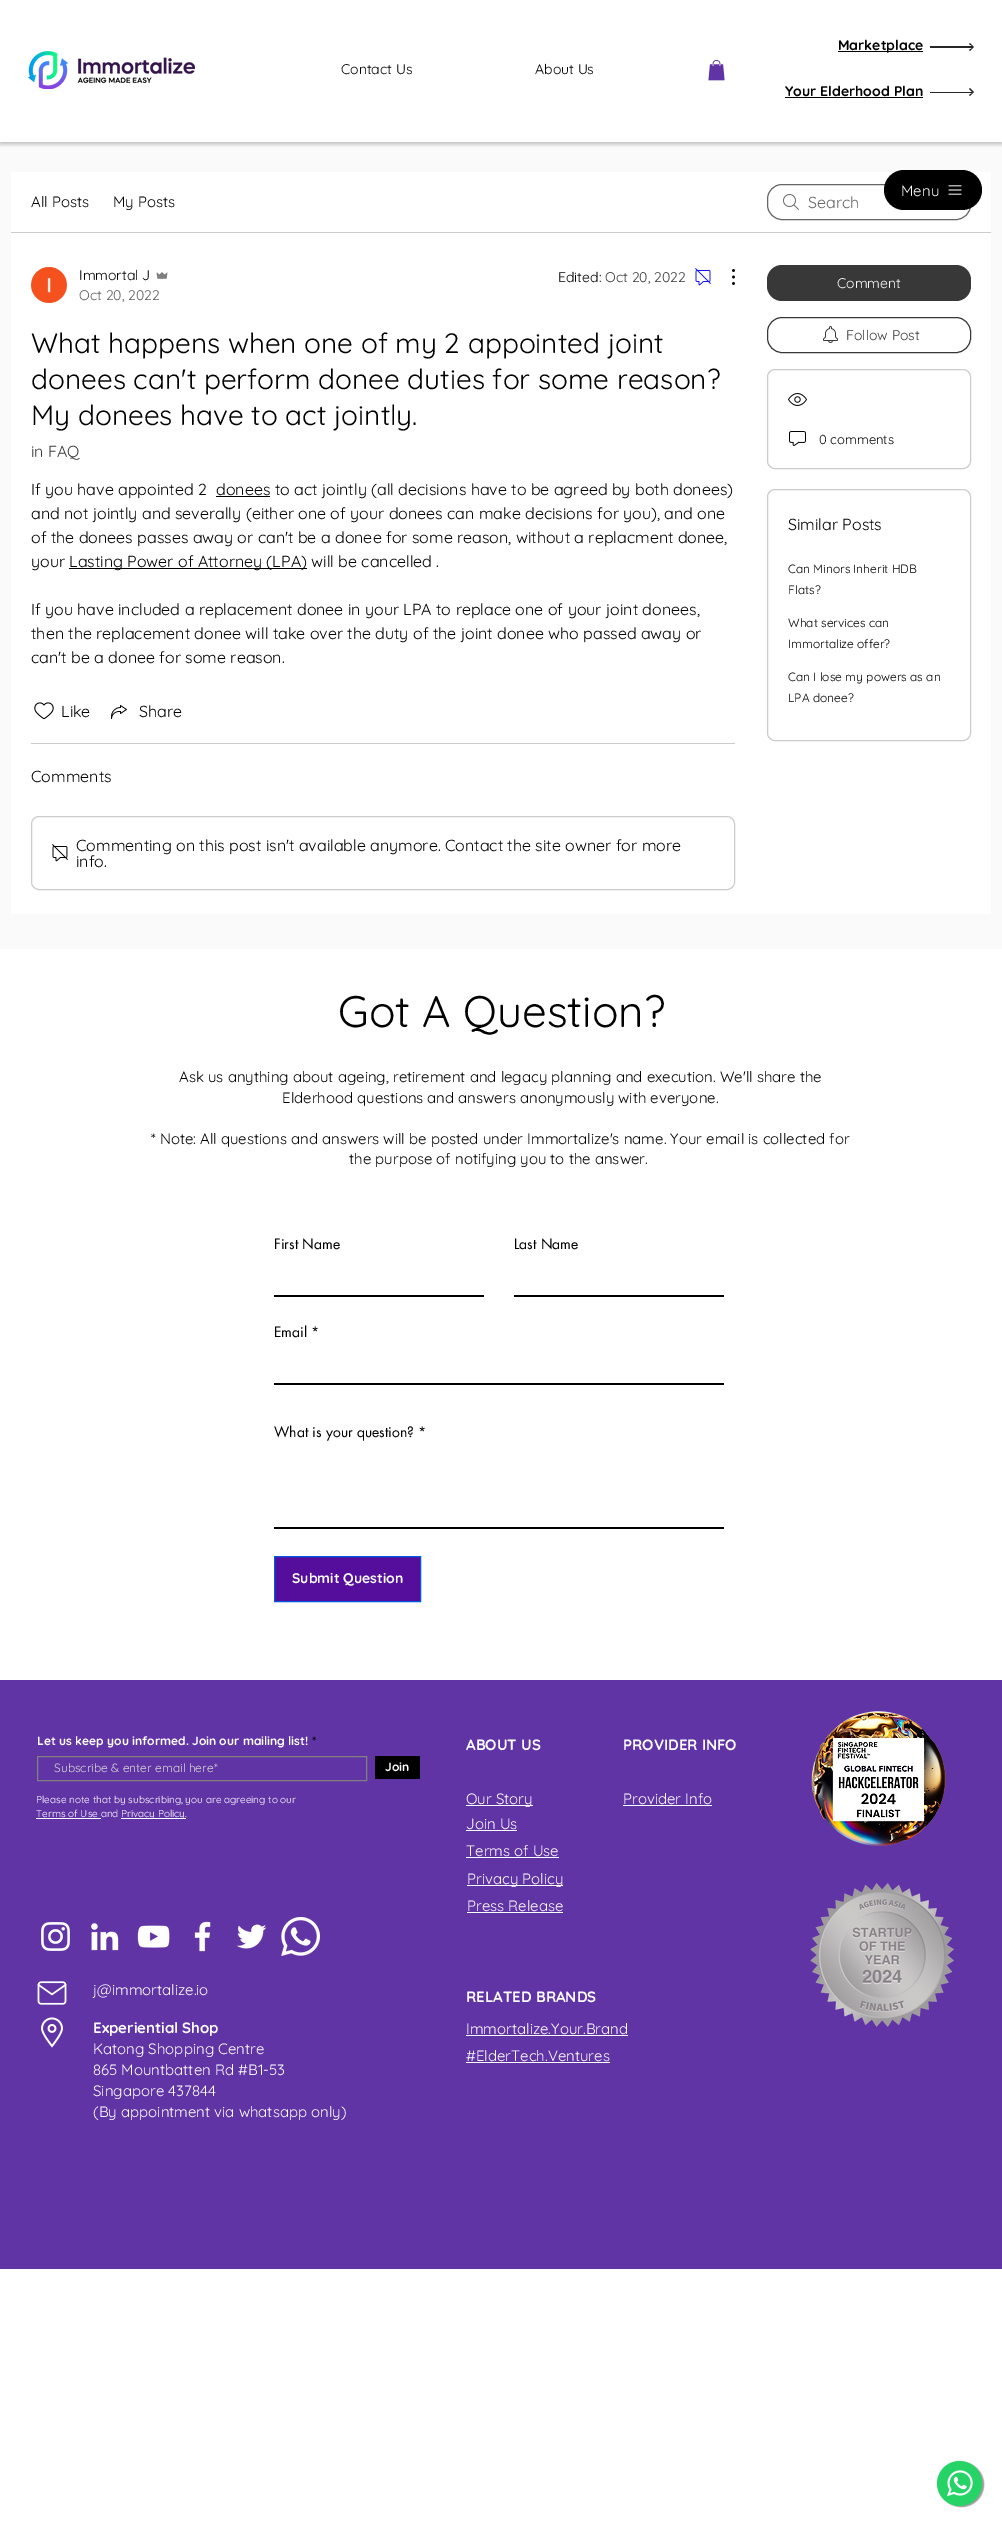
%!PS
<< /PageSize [1002 2526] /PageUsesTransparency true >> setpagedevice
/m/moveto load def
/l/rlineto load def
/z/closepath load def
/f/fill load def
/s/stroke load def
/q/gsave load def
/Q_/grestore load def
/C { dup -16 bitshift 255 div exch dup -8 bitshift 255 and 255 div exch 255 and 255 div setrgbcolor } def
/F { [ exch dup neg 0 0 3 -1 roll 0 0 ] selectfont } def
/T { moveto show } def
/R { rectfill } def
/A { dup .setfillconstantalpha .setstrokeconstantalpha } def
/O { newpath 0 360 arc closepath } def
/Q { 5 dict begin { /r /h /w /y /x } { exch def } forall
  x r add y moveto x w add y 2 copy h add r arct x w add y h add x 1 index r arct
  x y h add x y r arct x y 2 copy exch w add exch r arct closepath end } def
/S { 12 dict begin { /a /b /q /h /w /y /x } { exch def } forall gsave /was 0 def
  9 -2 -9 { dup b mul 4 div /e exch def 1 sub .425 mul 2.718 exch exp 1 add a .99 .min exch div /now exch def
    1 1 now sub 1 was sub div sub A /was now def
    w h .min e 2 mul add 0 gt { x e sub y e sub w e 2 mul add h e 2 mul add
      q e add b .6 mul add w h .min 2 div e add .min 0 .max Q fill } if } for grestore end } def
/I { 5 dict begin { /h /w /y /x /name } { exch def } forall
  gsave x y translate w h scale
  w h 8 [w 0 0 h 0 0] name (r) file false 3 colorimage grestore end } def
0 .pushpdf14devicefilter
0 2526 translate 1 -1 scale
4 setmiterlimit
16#FFFFFF C
0 0 1002 2526 R
16#FAFAFA C
0 142 1002 807 R
q
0 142 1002 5 rectclip
16#000000 C
0 2 1002 142 0 2.5 .25 S
Q_
16#000000 C
838 51 85 1 R
/Quicksand-Bold 14 F
(Marketplace) 838 50 T
16#282626 C
970 51 m 4 -4 l -4 -4 l -1 1 l 3 2 l -42 0 l 0 2 l 42 0 l -3 2 l z f
(1.rgb) 28 51 167 38 I
/Quicksand-Regular 14 F
16#000000 C
(Contact Us) 341 74 T
(About Us) 535 74 T
(2.rgb) 708 60 17 21 I
/Quicksand-Bold 14 F
(Your Elderhood Plan) 785 96 T
785 97 138 1 R
16#282626 C
970 96 m 4 -4 l -4 -4 l -1 1 l 3 3 l -42 0 l 0 1 l 42 0 l -3 2 l z f
16#FFFFFF C
11 172 980 742 R
(4.rgb) 783 194 16 16 I
16#666666 C
767.5 184.5 203 35 14.5 Q s
16#000000 C
884 170 98 40 20 Q f
/Quicksand-Regular 15 F
16#FFFFFF C
(Menu) 901 196 T
(3.rgb) 948 185 14 10 I
16#CCCCCC C
11 232 980 1 R
16#000000 C
(All Posts) 31 207 T
(My Posts) 113 207 T
/Quicksand-Regular 16 F
16#666666 C
(Search) 808 208 T
(5.rgb) 31 267 36 36 I
/Quicksand-Regular 14 F
16#000000 C
(Immortal J) 79 280 T
(6.rgb) 156 272 12 7 I
16#5C5C5C C
(Oct 20, 2022) 79 300 T
16#000000 C
(Edited:) 558 282 T
16#383838 C
(Oct 20, 2022) 605 282 T
(7.rgb) 695 268 16 18 I
(8.rgb) 732 269 3 16 I
/Quicksand-Regular 28 F
16#000000 C
(What happens when one of my 2 appointed joint) 31 353 T
(donees can't perform donee duties for some reason?) 31 389 T
(My donees have to act jointly.) 31 425 T
/Quicksand-Regular 16 F
16#383838 C
(in FAQ) 31 457 T
16#000000 C
(If you have appointed 2) 31 495 T
216 496 54 1 R
(donees to act jointly \(all decisions have to be agreed by both donees\)) 216 495 T
(and not jointly and severally \(either one of your donees can make decisions for you\), and one) 31 519 T
(of the donees passes away or can't be a donee for some reason, without a replacment donee,) 31 543 T
(your) 31 567 T
69 568 238 1 R
(Lasting Power of Attorney \(LPA\) will be cancelled .) 69 567 T
(If you have included a replacement donee in your LPA to replace one of your joint donees,) 31 615 T
(then the replacement donee will take over the duty of the joint donee who passed away or) 31 639 T
(can't be a donee for some reason.) 31 663 T
(9.rgb) 34 702 20 18 I
(Like) 61 717 T
(10.rgb) 111 705 16 14 I
(Share) 139 717 T
16#CCCCCC C
31 743 704 1 R
16#000000 C
(Comments) 31 782 T
16#CCCCCC C
31.5 816.5 703 73 7.5 Q s
(11.rgb) 52 844 16 18 I
16#000000 C
(Commenting on this post isn't available anymore. Contact the site owner for more) 76 851 T
(info.) 76 867 T
16#383838 C
767 265 204 36 15 Q f
/Quicksand-Regular 14 F
16#FFFFFF C
(Comment) 837 288 T
16#383838 C
767.5 317.5 203 35 14.5 Q s
(12.rgb) 823 326 15 17 I
(Follow Post) 846 340 T
16#CCCCCC C
767.5 369.5 203 99 7.5 Q s
(13.rgb) 788 393 19 13 I
(14.rgb) 789 431 17 15 I
/Quicksand-Regular 13 F
16#000000 C
(0 comments) 819 444 T
16#CCCCCC C
767.5 489.5 203 251 7.5 Q s
/Quicksand-Regular 16 F
16#000000 C
(Similar Posts) 788 530 T
/Quicksand-Regular 12 F
(Can Minors Inherit HDB) 788 573 T
(Flats?) 788 594 T
(What services can) 788 627 T
(Immortalize offer?) 788 648 T
(Can I lose my powers as an) 788 681 T
(LPA donee?) 788 702 T
/Quicksand-Regular 44 F
(Got A Question?) 338 1027 T
/Quicksand-Regular 15 F
(Ask us anything about ageing, retirement and legacy planning and execution. We'll share the) 179 1082 T
(Elderhood questions and answers anonymously with everyone.) 282 1103 T
(* Note: All questions and answers will be posted under Immortalize's name. Your email is collected for) 151 1144 T
(the purpose of notifying you to the answer.) 349 1164 T
/futura-Regular 14 F
(First Name) 274 1249 T
274 1295 210 2 R
(Last Name) 514 1249 T
514 1295 210 2 R
(Email *) 274 1337 T
274 1383 450 2 R
(What is your question? *) 274 1437 T
274 1527 450 2 R
16#550E9B C
274.5 1556.5 m 146 0 l 0 45 l -146 0 l z q f Q_
16#0057E1 C
s
/Quicksand-Bold 14 F
16#FFFFFF C
(Submit Question) 292 1583 T
16#6134A5 C
0 1680 1002 589 R
/Quicksand-Bold 12 F
16#FFFFFF C
(Let us keep you informed. Join our mailing list!) 37 1745 T
16#000000 C
(*) 312 1745 T
16#808080 C
37.5 1756.5 329 24 rectstroke
/Quicksand-Regular 12 F
16#D5D5D5 C
(Subscribe & enter email here*) 54 1772 T
16#000000 C
375 1756 45 23 R
/Quicksand-Bold 12 F
16#FFFFFF C
(Join) 385 1771 T
/Quicksand-Regular 10 F
(Please note that by subscribing, you are agreeing to our) 36 1803 T
(Terms of Use and) 36 1817 T
36 1818 65 1 R
121 1818 65 1 R
(Privacy Policy.) 121 1817 T
/Quicksand-Bold 15 F
(ABOUT US) 466 1750 T
(PROVIDER INFO) 623 1750 T
(15.rgb) 811 1711 135 135 I
466 1805 67 1 R
/Quicksand-Regular 15 F
(Our Story) 466 1804 T
(Provider Info) 623 1804 T
623 1805 89 1 R
(Join Us) 466 1829 T
466 1830 51 1 R
(Terms of Use) 466 1856 T
466 1857 93 1 R
467 1885 96 1 R
(Privacy Policy) 467 1884 T
(Press Release) 467 1911 T
467 1912 96 1 R
(16.rgb) 810 1883 144 144 I
(17.rgb) 41 1922 29 29 I
(18.rgb) 91 1923 28 28 I
(19.rgb) 137 1925 33 23 I
(20.rgb) 194 1921 17 31 I
(21.rgb) 237 1924 30 25 I
(22.rgb) 281 1917 39 39 I
(23.rgb) 37 1981 30 24 I
(j@immortalize.io) 93 1995 T
/Quicksand-Bold 15 F
(RELATED BRANDS) 466 2002 T
(24.rgb) 41 2017 22 31 I
(Experiential Shop) 93 2033 T
/Quicksand-Regular 15 F
(Katong Shopping Centre) 93 2054 T
(865 Mountbatten Rd #B1-53) 93 2075 T
(Singapore 437844) 93 2096 T
(\(By appointment via whatsapp only\)) 93 2117 T
(Immortalize.Your.Brand) 466 2034 T
466 2035 162 1 R
(#ElderTech.Ventures) 466 2061 T
466 2062 144 1 R
16#999999 C
939 2462 45 45 22.5 .5 1 S
16#25D366 C
959.5 2483.5 22.5 O f
(25.rgb) 947 2470 26 27 I
.poppdf14devicefilter showpage
